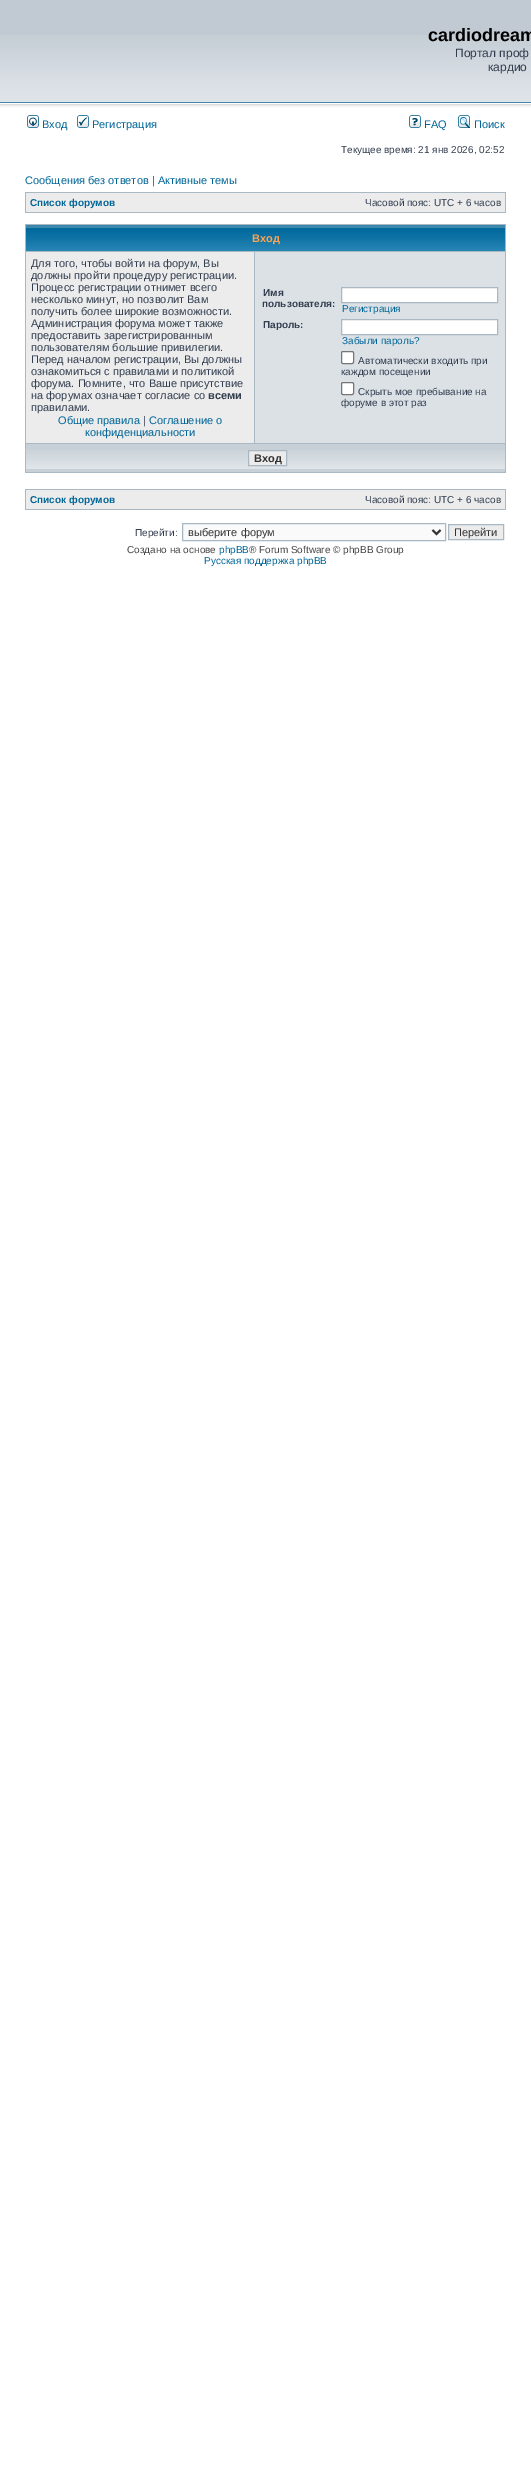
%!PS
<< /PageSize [531 2473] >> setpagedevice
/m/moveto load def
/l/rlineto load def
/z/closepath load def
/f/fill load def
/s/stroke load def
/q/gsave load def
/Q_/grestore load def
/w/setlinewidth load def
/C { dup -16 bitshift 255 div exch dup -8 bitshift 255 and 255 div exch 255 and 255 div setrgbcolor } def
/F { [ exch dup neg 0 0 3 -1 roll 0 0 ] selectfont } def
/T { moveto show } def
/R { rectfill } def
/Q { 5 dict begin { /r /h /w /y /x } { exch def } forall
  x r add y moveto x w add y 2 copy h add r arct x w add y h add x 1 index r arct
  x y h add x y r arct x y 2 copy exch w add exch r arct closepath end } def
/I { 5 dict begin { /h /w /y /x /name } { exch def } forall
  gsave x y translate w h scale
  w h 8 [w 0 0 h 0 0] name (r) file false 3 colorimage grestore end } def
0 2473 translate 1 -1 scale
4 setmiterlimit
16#FFFFFF C
0 0 531 2473 R
16#C1CAD2 C
0 0 531 35 R
(1.rgb) 0 35 531 78 I
/LiberationSans-Bold 18 F
16#000000 C
(cardiodream) 428 41 T
/LiberationSans-Regular 12 F
16#323D4F C
(Портал проф) 455 57 T
(кардио) 488 71 T
(2.rgb) 27 115 12 13 I
/LiberationSans-Regular 11 F
16#006597 C
(Вход) 42 128 T
(3.rgb) 77 115 12 13 I
(Регистрация) 92 128 T
(4.rgb) 409 115 12 13 I
(FAQ) 424 128 T
(5.rgb) 458 115 12 13 I
(Поиск) 474 128 T
/LiberationSans-Regular 10 F
16#323D4F C
(Текущее время: 21 янв 2026, 02:52) 341 153 T
/LiberationSans-Regular 11 F
16#006597 C
(Сообщения без ответов) 25 184 T
16#323D4F C
(|) 152 184 T
16#006597 C
(Активные темы) 158 184 T
16#A9B8C2 C
25 192 481 21 R
16#ECECEC C
26 193 479 19 R
/LiberationSans-Bold 10 F
16#006597 C
(Список форумов) 30 206 T
/LiberationSans-Regular 10 F
16#323D4F C
(Часовой пояс: UTC + 6 часов) 365 206 T
16#A9B8C2 C
25 224 481 249 R
(6.rgb) 26 225 479 26 I
/LiberationSans-Bold 11 F
16#FFA34F C
(Вход) 252 242 T
16#ECECEC C
26 252 228 191 R
/LiberationSans-Regular 11 F
16#323D4F C
(Для того, чтобы войти на форум, Вы) 31 267 T
(должны пройти процедуру регистрации.) 31 279 T
(Процесс регистрации отнимет всего) 31 291 T
(несколько минут, но позволит Вам) 31 303 T
(получить более широкие возможности.) 31 315 T
(Администрация форума может также) 31 327 T
(предоставить зарегистрированным) 31 339 T
(пользователям большие привилегии.) 31 351 T
(Перед началом регистрации, Вы должны) 31 363 T
(ознакомиться с правилами и политикой) 31 375 T
(форума. Помните, что Ваше присутствие) 31 387 T
(на форумах означает согласие со) 31 399 T
/LiberationSans-Bold 11 F
(всеми) 208 399 T
/LiberationSans-Regular 11 F
(правилами.) 31 411 T
16#006597 C
(Общие правила) 58 424 T
16#323D4F C
(|) 143 424 T
16#006597 C
(Соглашение о) 149 424 T
(конфиденциальности) 85 436 T
16#DCE1E5 C
255 252 250 191 R
/LiberationSans-Bold 10 F
16#323D4F C
(Имя) 263 296 T
(пользователя:) 262 307 T
16#FFFFFF C
341.5 287.5 m 156 0 l 0 15 l -156 0 l z q f Q_
16#A9B8C2 C
s
/LiberationSans-Regular 10 F
16#006597 C
(Регистрация) 342 312 T
/LiberationSans-Bold 10 F
16#323D4F C
(Пароль:) 263 328 T
16#FFFFFF C
341.5 319.5 m 156 0 l 0 15 l -156 0 l z q f Q_
16#A9B8C2 C
s
/LiberationSans-Regular 10 F
16#006597 C
(Забыли пароль?) 342 344 T
16#FFFFFF C
341.5 351.5 12 12 1.5 Q q f Q_
16#767676 C
s
16#323D4F C
(Автоматически входить при) 358 364 T
(каждом посещении) 341 375 T
16#FFFFFF C
341.5 382.5 12 12 1.5 Q q f Q_
16#767676 C
s
16#323D4F C
(Скрыть мое пребывание на) 358 395 T
(форуме в этот раз) 341 406 T
16#C7D0D7 C
26 444 479 28 R
(7.rgb) 26 450 479 19 I
16#ECECEC C
248.5 450.5 m 38 0 l 0 15 l -38 0 l z q f Q_
16#A9B8C2 C
s
/LiberationSans-Bold 11 F
16#333333 C
(Вход) 254 462 T
16#A9B8C2 C
25 489 481 21 R
16#ECECEC C
26 490 479 19 R
/LiberationSans-Bold 10 F
16#006597 C
(Список форумов) 30 503 T
/LiberationSans-Regular 10 F
16#323D4F C
(Часовой пояс: UTC + 6 часов) 365 503 T
(Перейти:) 135 536 T
16#FAFAFA C
182.5 523.5 m 263 0 l 0 17 l -263 0 l z q f Q_
16#A9B8C2 C
s
16#333333 C
2 w
432.5 530 m 4 4 l 4 -4 l s
/LiberationSans-Regular 11 F
(выберите форум) 188 536 T
16#ECECEC C
448.5 524.5 m 55 0 l 0 15 l -55 0 l z q f Q_
16#A9B8C2 C
1 w
s
16#333333 C
(Перейти) 454 536 T
/LiberationSans-Regular 10 F
16#444444 C
(Создано на основе) 127 553 T
16#006597 C
(phpBB) 219 553 T
16#444444 C
(® Forum Software © phpBB Group) 249 553 T
16#006597 C
(Русская поддержка phpBB) 204 564 T
showpage
